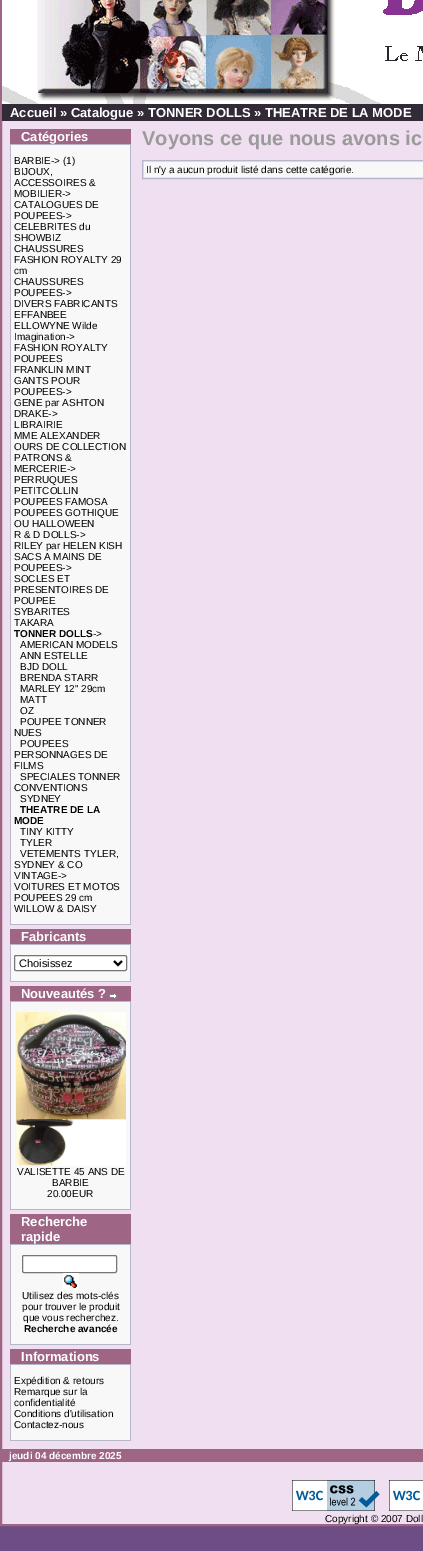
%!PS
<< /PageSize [423 1551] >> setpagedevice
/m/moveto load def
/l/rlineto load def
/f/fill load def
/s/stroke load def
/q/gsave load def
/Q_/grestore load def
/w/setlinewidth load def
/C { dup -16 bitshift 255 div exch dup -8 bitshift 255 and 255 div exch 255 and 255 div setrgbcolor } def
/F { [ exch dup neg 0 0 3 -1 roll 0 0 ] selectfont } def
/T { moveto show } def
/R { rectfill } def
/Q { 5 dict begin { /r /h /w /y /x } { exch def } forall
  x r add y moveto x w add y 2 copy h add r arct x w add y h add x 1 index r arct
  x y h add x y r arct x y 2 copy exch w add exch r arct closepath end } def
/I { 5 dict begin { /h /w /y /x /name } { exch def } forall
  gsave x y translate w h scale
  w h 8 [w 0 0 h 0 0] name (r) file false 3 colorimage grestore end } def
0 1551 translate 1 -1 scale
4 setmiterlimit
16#6D4D84 C
0 0 423 1551 R
16#F0DFF0 C
2 121 421 1403 R
16#9E6585 C
2 w
1 -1 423 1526 rectstroke
(1.rgb) 2 0 421 104 I
16#322A37 C
2 104 421 17 R
/LiberationSans-Bold 13 F
16#FFFFFF C
(Accueil » Catalogue » TONNER DOLLS » THEATRE DE LA MODE) 10 117 T
16#9E6585 C
10 129 121 15 R
16#FFFFFF C
(Catégories) 21 141 T
16#B6B7CB C
10 144 121 781 R
16#F8F8F9 C
11 145 119 779 R
/LiberationSans-Regular 10 F
16#000000 C
(BARBIE-> \(1\)) 14 164 T
(BIJOUX,) 14 175 T
(ACCESSOIRES &) 14 186 T
(MOBILIER->) 14 197 T
(CATALOGUES DE) 14 208 T
(POUPEES->) 14 219 T
(CELEBRITES du) 14 230 T
(SHOWBIZ) 14 241 T
(CHAUSSURES) 14 252 T
(FASHION ROYALTY 29) 14 263 T
(cm) 14 274 T
(CHAUSSURES) 14 285 T
(POUPEES->) 14 296 T
(DIVERS FABRICANTS) 14 307 T
(EFFANBEE) 14 318 T
(ELLOWYNE Wilde) 14 329 T
(Imagination->) 14 340 T
(FASHION ROYALTY) 14 351 T
(POUPEES) 14 362 T
(FRANKLIN MINT) 14 373 T
(GANTS POUR) 14 384 T
(POUPEES->) 14 395 T
(GENE par ASHTON) 14 406 T
(DRAKE->) 14 417 T
(LIBRAIRIE) 14 428 T
(MME ALEXANDER) 14 439 T
(OURS DE COLLECTION) 14 450 T
(PATRONS &) 14 461 T
(MERCERIE->) 14 472 T
(PERRUQUES) 14 483 T
(PETITCOLLIN) 14 494 T
(POUPEES FAMOSA) 14 505 T
(POUPEES GOTHIQUE) 14 516 T
(OU HALLOWEEN) 14 527 T
(R & D DOLLS->) 14 538 T
(RILEY par HELEN KISH) 14 549 T
(SACS A MAINS DE) 14 560 T
(POUPEES->) 14 571 T
(SOCLES ET) 14 582 T
(PRESENTOIRES DE) 14 593 T
(POUPEE) 14 604 T
(SYBARITES) 14 615 T
(TAKARA) 14 626 T
/LiberationSans-Bold 10 F
(TONNER DOLLS) 14 637 T
/LiberationSans-Regular 10 F
(->) 93 637 T
(AMERICAN MODELS) 20 648 T
(ANN ESTELLE) 20 659 T
(BJD DOLL) 20 670 T
(BRENDA STARR) 20 681 T
(MARLEY 12" 29cm) 20 692 T
(MATT) 20 703 T
(OZ) 20 714 T
(POUPEE TONNER) 20 725 T
(NUES) 14 736 T
(POUPEES) 20 747 T
(PERSONNAGES DE) 14 758 T
(FILMS) 14 769 T
(SPECIALES TONNER) 20 780 T
(CONVENTIONS) 14 791 T
(SYDNEY) 20 802 T
/LiberationSans-Bold 10 F
(THEATRE DE LA) 20 813 T
(MODE) 14 824 T
/LiberationSans-Regular 10 F
(TINY KITTY) 20 835 T
(TYLER) 20 846 T
(VETEMENTS TYLER,) 20 857 T
(SYDNEY & CO) 14 868 T
(VINTAGE->) 14 879 T
(VOITURES ET MOTOS) 14 890 T
(POUPEES 29 cm) 14 901 T
(WILLOW & DAISY) 14 912 T
16#9E6585 C
10 929 121 15 R
/LiberationSans-Bold 13 F
16#FFFFFF C
(Fabricants) 21 941 T
16#B6B7CB C
10 944 121 38 R
16#F8F8F9 C
11 945 119 36 R
16#FFFFFF C
14.5 955.5 112 15 1.5 Q q f Q_
16#767676 C
1 w
s
16#000000 C
2 w
114 961 m 4 4 l 4 -4 l s
/LiberationSans-Regular 11 F
(Choisissez) 19 967 T
16#9E6585 C
10 986 121 15 R
/LiberationSans-Bold 13 F
16#FFFFFF C
(Nouveautés ?) 21 998 T
(2.rgb) 109 993 9 6 I
16#B6B7CB C
10 1001 121 209 R
16#F8F8F9 C
11 1002 119 207 R
(3.rgb) 16 1012 110 154 I
/LiberationSans-Regular 10 F
16#000000 C
(VALISETTE 45 ANS DE) 17 1175 T
(BARBIE) 52 1186 T
(20.00EUR) 47 1197 T
16#9E6585 C
10 1214 121 30 R
/LiberationSans-Bold 13 F
16#FFFFFF C
(Recherche) 21 1226 T
(rapide) 21 1241 T
16#B6B7CB C
10 1244 121 101 R
16#F8F8F9 C
11 1245 119 99 R
16#FFFFFF C
22.5 1255.5 94 17 1.5 Q q f Q_
16#767676 C
1 w
s
(4.rgb) 63 1273 16 17 I
/LiberationSans-Regular 10 F
16#000000 C
(Utilisez des mots-clés) 22 1299 T
(pour trouver le produit) 22 1310 T
(que vous recherchez.) 23 1321 T
/LiberationSans-Bold 10 F
(Recherche avancée) 24 1332 T
16#9E6585 C
10 1349 121 15 R
/LiberationSans-Bold 13 F
16#FFFFFF C
(Informations) 21 1361 T
16#B6B7CB C
10 1364 121 77 R
16#F8F8F9 C
11 1365 119 75 R
/LiberationSans-Regular 10 F
16#000000 C
(Expédition & retours) 14 1384 T
(Remarque sur la) 14 1395 T
(confidentialité) 14 1406 T
(Conditions d'utilisation) 14 1417 T
(Contactez-nous) 14 1428 T
/LiberationSans-Bold 20 F
16#9A9A9A C
(Voyons ce que nous avons ic) 142 145 T
16#B6B7CB C
142.5 160.5 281 18 rectstroke
16#F8F8F9 C
144 162 279 15 R
/LiberationSans-Regular 10 F
16#000000 C
(Il n'y a aucun produit listé dans cette catégorie.) 146 173 T
16#9E6585 C
2 1449 421 13 R
/LiberationSans-Bold 10 F
16#FFFFFF C
(jeudi 04 décembre 2025) 9 1459 T
(5.rgb) 292 1480 88 31 I
(6.rgb) 389 1480 34 31 I
/LiberationSans-Regular 10 F
16#000000 C
(Copyright © 2007 Doll) 325 1522 T
showpage
